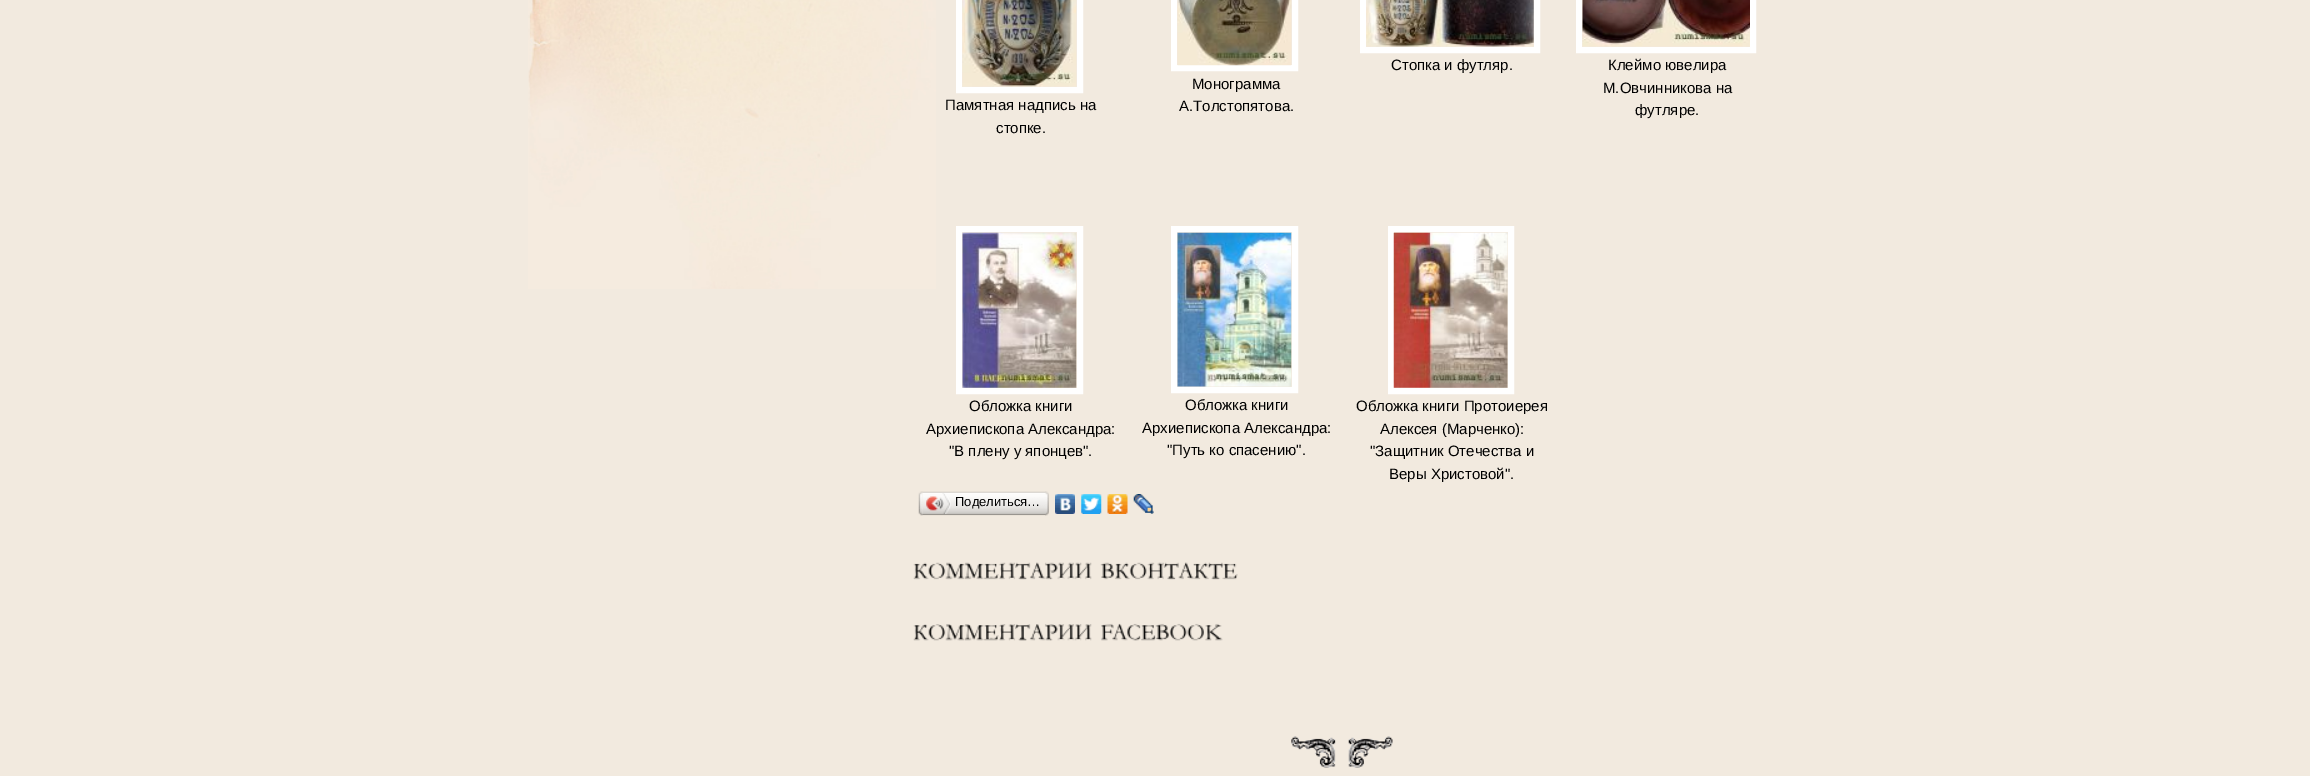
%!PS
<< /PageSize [2310 776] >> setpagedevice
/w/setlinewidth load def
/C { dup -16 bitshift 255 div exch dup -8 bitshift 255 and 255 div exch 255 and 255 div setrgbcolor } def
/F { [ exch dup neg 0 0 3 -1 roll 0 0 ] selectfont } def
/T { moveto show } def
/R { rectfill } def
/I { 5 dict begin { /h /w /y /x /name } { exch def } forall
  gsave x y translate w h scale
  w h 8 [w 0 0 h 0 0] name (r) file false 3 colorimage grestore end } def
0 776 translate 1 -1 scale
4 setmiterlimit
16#F2EADF C
0 0 2310 776 R
(1.rgb) 528 0 408 289 I
(2.rgb) 1291 736 102 32 I
16#FFFFFF C
6 w
1363 -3 174 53 rectstroke
(3.rgb) 1366 0 168 47 I
/LiberationSans-Regular 15 F
16#000000 C
(Стопка и футляр.) 1391 70 T
16#FFFFFF C
1579 -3 174 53 rectstroke
(4.rgb) 1582 0 168 47 I
16#000000 C
(Клеймо ювелира) 1608 70 T
(М.Овчинникова на) 1603 93 T
(футляре.) 1635 115 T
16#FFFFFF C
1174 -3 121 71 rectstroke
(5.rgb) 1177 0 115 66 I
16#000000 C
(Монограмма) 1192 89 T
(А.Толстопятова.) 1179 111 T
16#FFFFFF C
959 -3 121 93 rectstroke
(6.rgb) 962 0 115 87 I
16#000000 C
(Памятная надпись на) 945 110 T
(стопке.) 996 133 T
16#FFFFFF C
959 229 121 162 rectstroke
(7.rgb) 962 232 115 156 I
16#000000 C
(Обложка книги) 969 411 T
(Архиепископа Александра:) 926 434 T
("В плену у японцев".) 949 456 T
16#FFFFFF C
1174 229 121 161 rectstroke
(8.rgb) 1177 232 115 155 I
16#000000 C
(Обложка книги) 1185 410 T
(Архиепископа Александра:) 1142 433 T
("Путь ко спасению".) 1167 455 T
16#FFFFFF C
1391 229 120 162 rectstroke
(9.rgb) 1393 232 115 156 I
16#000000 C
(Обложка книги Протоиерея) 1356 411 T
(Алексея \(Марченко\):) 1380 434 T
("Защитник Отечества и) 1370 456 T
(Веры Христовой".) 1389 479 T
(10.rgb) 922 491 123 25 I
(11.rgb) 918 491 5 25 I
(12.rgb) 926 493 25 21 I
/LiberationSans-Regular 13 F
(Поделиться…) 955 506 T
(13.rgb) 1045 491 4 25 I
(14.rgb) 1055 494 20 20 I
(15.rgb) 1081 494 21 20 I
(16.rgb) 1107 494 21 20 I
(17.rgb) 1133 494 21 20 I
(18.rgb) 913 562 179 18 I
(19.rgb) 1100 562 138 18 I
(20.rgb) 913 624 179 17 I
(21.rgb) 1101 623 122 18 I
showpage
